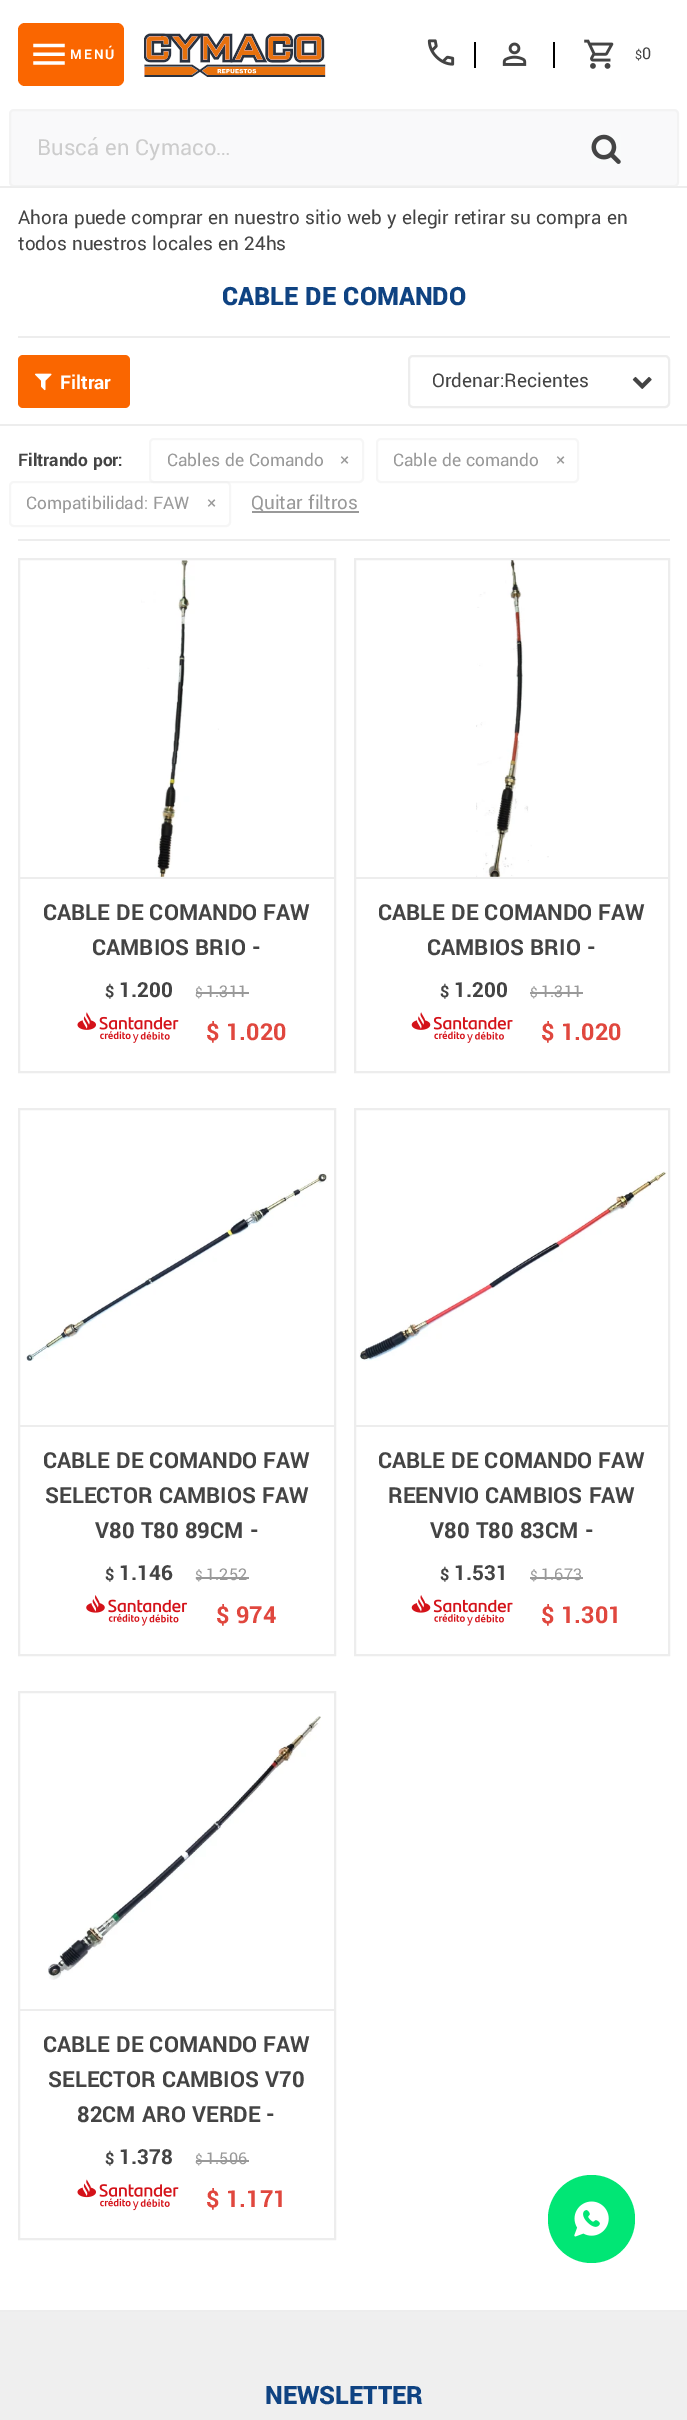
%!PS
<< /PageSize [687 2420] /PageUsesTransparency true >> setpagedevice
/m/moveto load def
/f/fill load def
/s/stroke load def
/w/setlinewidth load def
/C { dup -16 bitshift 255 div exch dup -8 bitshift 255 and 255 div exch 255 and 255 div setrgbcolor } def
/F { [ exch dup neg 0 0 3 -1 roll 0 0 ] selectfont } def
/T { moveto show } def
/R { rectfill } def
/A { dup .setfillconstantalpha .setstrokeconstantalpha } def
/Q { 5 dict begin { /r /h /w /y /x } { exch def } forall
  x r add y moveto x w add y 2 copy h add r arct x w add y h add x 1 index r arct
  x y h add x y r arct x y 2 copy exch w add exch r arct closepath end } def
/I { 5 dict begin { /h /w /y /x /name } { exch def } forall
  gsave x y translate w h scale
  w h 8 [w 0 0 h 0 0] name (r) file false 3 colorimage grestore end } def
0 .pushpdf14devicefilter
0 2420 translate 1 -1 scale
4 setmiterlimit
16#FFFFFF C
0 0 687 2420 R
16#FA6600 C
18 23 106 63 7 Q f
(1.rgb) 33 43 32 22 I
/Yantramanav-Bold 15 F
16#FFFFFF C
70 59 m 2 0 (MENÚ) ashow
(2.rgb) 144 33 182 44 I
(3.rgb) 427 39 28 27 I
16#000000 C
474 42 2 26 R
(4.rgb) 502 42 25 24 I
553 42 2 26 R
(5.rgb) 584 39 30 30 I
/Yantramanav-Regular 14 F
16#444444 C
($) 635 59 T
/Yantramanav-Regular 18 F
(0) 642 59 T
16#EDEDED C
0 186 687 2 R
0.5 A
16#F3F4F6 C
9 109 670 78 5 Q f
16#EDEDED C
2 w
10 110 668 76 4 Q s
/Yantramanav-Regular 24.5 F
1 A
16#CCCCCC C
(Buscá en Cymaco…) 37 155 T
(6.rgb) 591 134 30 30 I
/Yantramanav-Regular 21 F
16#444444 C
(Ahora puede comprar en nuestro sitio web y elegir retirar su compra en) 18 224 T
(todos nuestros locales en 24hs) 18 250 T
16#EDEDED C
18 336 652 2 R
/Yantramanav-Black 28 F
16#0F4382 C
(CABLE DE COMANDO) 222 305 T
16#FA6600 C
18 355 112 53 5 Q f
(7.rgb) 35 373 17 18 I
/Yantramanav-Bold 21 F
16#FFFFFF C
(Filtrar) 60 389 T
(8.rgb) 632 376 20 13 I
16#EDEDED C
409 356 260 51 4 Q s
/Yantramanav-Regular 21 F
16#444444 C
(Ordenar:Recientes) 432 387 T
16#EDEDED C
0 424 687 2 R
18 539 652 2 R
/Yantramanav-Bold 19.25 F
16#444444 C
(Filtrando por:) 18 466 T
16#F6F6F6 C
150 439 213 43 4 Q s
/Yantramanav-Regular 19.25 F
16#999999 C
(Cables de Comando) 167 466 T
(×) 340 466 T
16#F6F6F6 C
377 439 201 43 4 Q s
16#999999 C
(Cable de comando) 393 466 T
(×) 556 466 T
0.5 A
16#EDEDED C
10 482 220 44 4 Q s
1 A
16#999999 C
(Compatibilidad: FAW) 26 509 T
(×) 207 509 T
252 511 107 2 R
/Yantramanav-Regular 21 F
(Quitar filtros) 251 509 T
(9.rgb) 141 560 78 317 I
16#EDEDED C
18 877 318 2 R
16#999999 C
196 992 53 2 R
(10.rgb) 77 1012 102 31 I
16#EDEDED C
19 559 316 513 rectstroke
/Yantramanav-Bold 24.5 F
16#444444 C
(CABLE DE COMANDO FAW) 43 920 T
(CAMBIOS BRIO -) 92 955 T
/Yantramanav-Bold 18 F
($) 105 997 T
/Yantramanav-Bold 23 F
(1.200) 119 997 T
/Yantramanav-Regular 15 F
16#999999 C
($) 195 997 T
/Yantramanav-Regular 18 F
(1.311) 206 997 T
/Yantramanav-Bold 26 F
16#E0473E C
($ 1.020) 206 1040 T
(11.rgb) 476 560 73 317 I
16#EDEDED C
354 877 316 2 R
16#999999 C
530 992 53 2 R
(12.rgb) 411 1012 102 31 I
16#EDEDED C
355 559 314 513 rectstroke
/Yantramanav-Bold 24.5 F
16#444444 C
(CABLE DE COMANDO FAW) 378 920 T
(CAMBIOS BRIO -) 427 955 T
/Yantramanav-Bold 18 F
($) 440 997 T
/Yantramanav-Bold 23 F
(1.200) 454 997 T
/Yantramanav-Regular 15 F
16#999999 C
($) 530 997 T
/Yantramanav-Regular 18 F
(1.311) 541 997 T
/Yantramanav-Bold 26 F
16#E0473E C
($ 1.020) 541 1040 T
(13.rgb) 26 1173 302 188 I
16#EDEDED C
18 1425 318 2 R
16#999999 C
196 1577 53 2 R
(14.rgb) 86 1595 102 31 I
16#EDEDED C
19 1109 316 546 rectstroke
/Yantramanav-Bold 24.5 F
16#444444 C
(CABLE DE COMANDO FAW) 43 1468 T
(SELECTOR CAMBIOS FAW) 45 1503 T
(V80 T80 89CM -) 95 1538 T
/Yantramanav-Bold 18 F
($) 105 1580 T
/Yantramanav-Bold 23 F
(1.146) 119 1580 T
/Yantramanav-Regular 15 F
16#999999 C
($) 195 1580 T
/Yantramanav-Regular 18 F
(1.252) 206 1580 T
/Yantramanav-Bold 26 F
16#E0473E C
($ 974) 216 1623 T
(15.rgb) 359 1171 309 190 I
16#EDEDED C
354 1425 316 2 R
16#999999 C
530 1577 53 2 R
(16.rgb) 411 1595 102 31 I
16#EDEDED C
355 1109 314 546 rectstroke
/Yantramanav-Bold 24.5 F
16#444444 C
(CABLE DE COMANDO FAW) 378 1468 T
(REENVIO CAMBIOS FAW) 388 1503 T
(V80 T80 83CM -) 430 1538 T
/Yantramanav-Bold 18 F
($) 440 1580 T
/Yantramanav-Bold 23 F
(1.531) 454 1580 T
/Yantramanav-Regular 15 F
16#999999 C
($) 530 1580 T
/Yantramanav-Regular 18 F
(1.673) 541 1580 T
/Yantramanav-Bold 26 F
16#E0473E C
($ 1.301) 541 1623 T
(17.rgb) 48 1716 273 264 I
16#EDEDED C
18 2009 318 2 R
16#999999 C
196 2160 53 2 R
(18.rgb) 77 2179 102 32 I
16#EDEDED C
19 1692 316 547 rectstroke
/Yantramanav-Bold 24.5 F
16#444444 C
(CABLE DE COMANDO FAW) 43 2052 T
(SELECTOR CAMBIOS V70) 48 2087 T
(82CM ARO VERDE -) 77 2122 T
/Yantramanav-Bold 18 F
($) 105 2164 T
/Yantramanav-Bold 23 F
(1.378) 119 2164 T
/Yantramanav-Regular 15 F
16#999999 C
($) 195 2164 T
/Yantramanav-Regular 18 F
(1.506) 206 2164 T
/Yantramanav-Bold 26 F
16#E0473E C
($ 1.171) 206 2207 T
16#EFEFEF C
0 2312 687 108 R
16#EDEDED C
0 2310 687 2 R
/Yantramanav-Black 28 F
16#0F4382 C
(NEWSLETTER) 265 2404 T
16#01E675 C
548 2175 87 88 43.5 Q f
(19.rgb) 574 2201 35 36 I
.poppdf14devicefilter showpage
